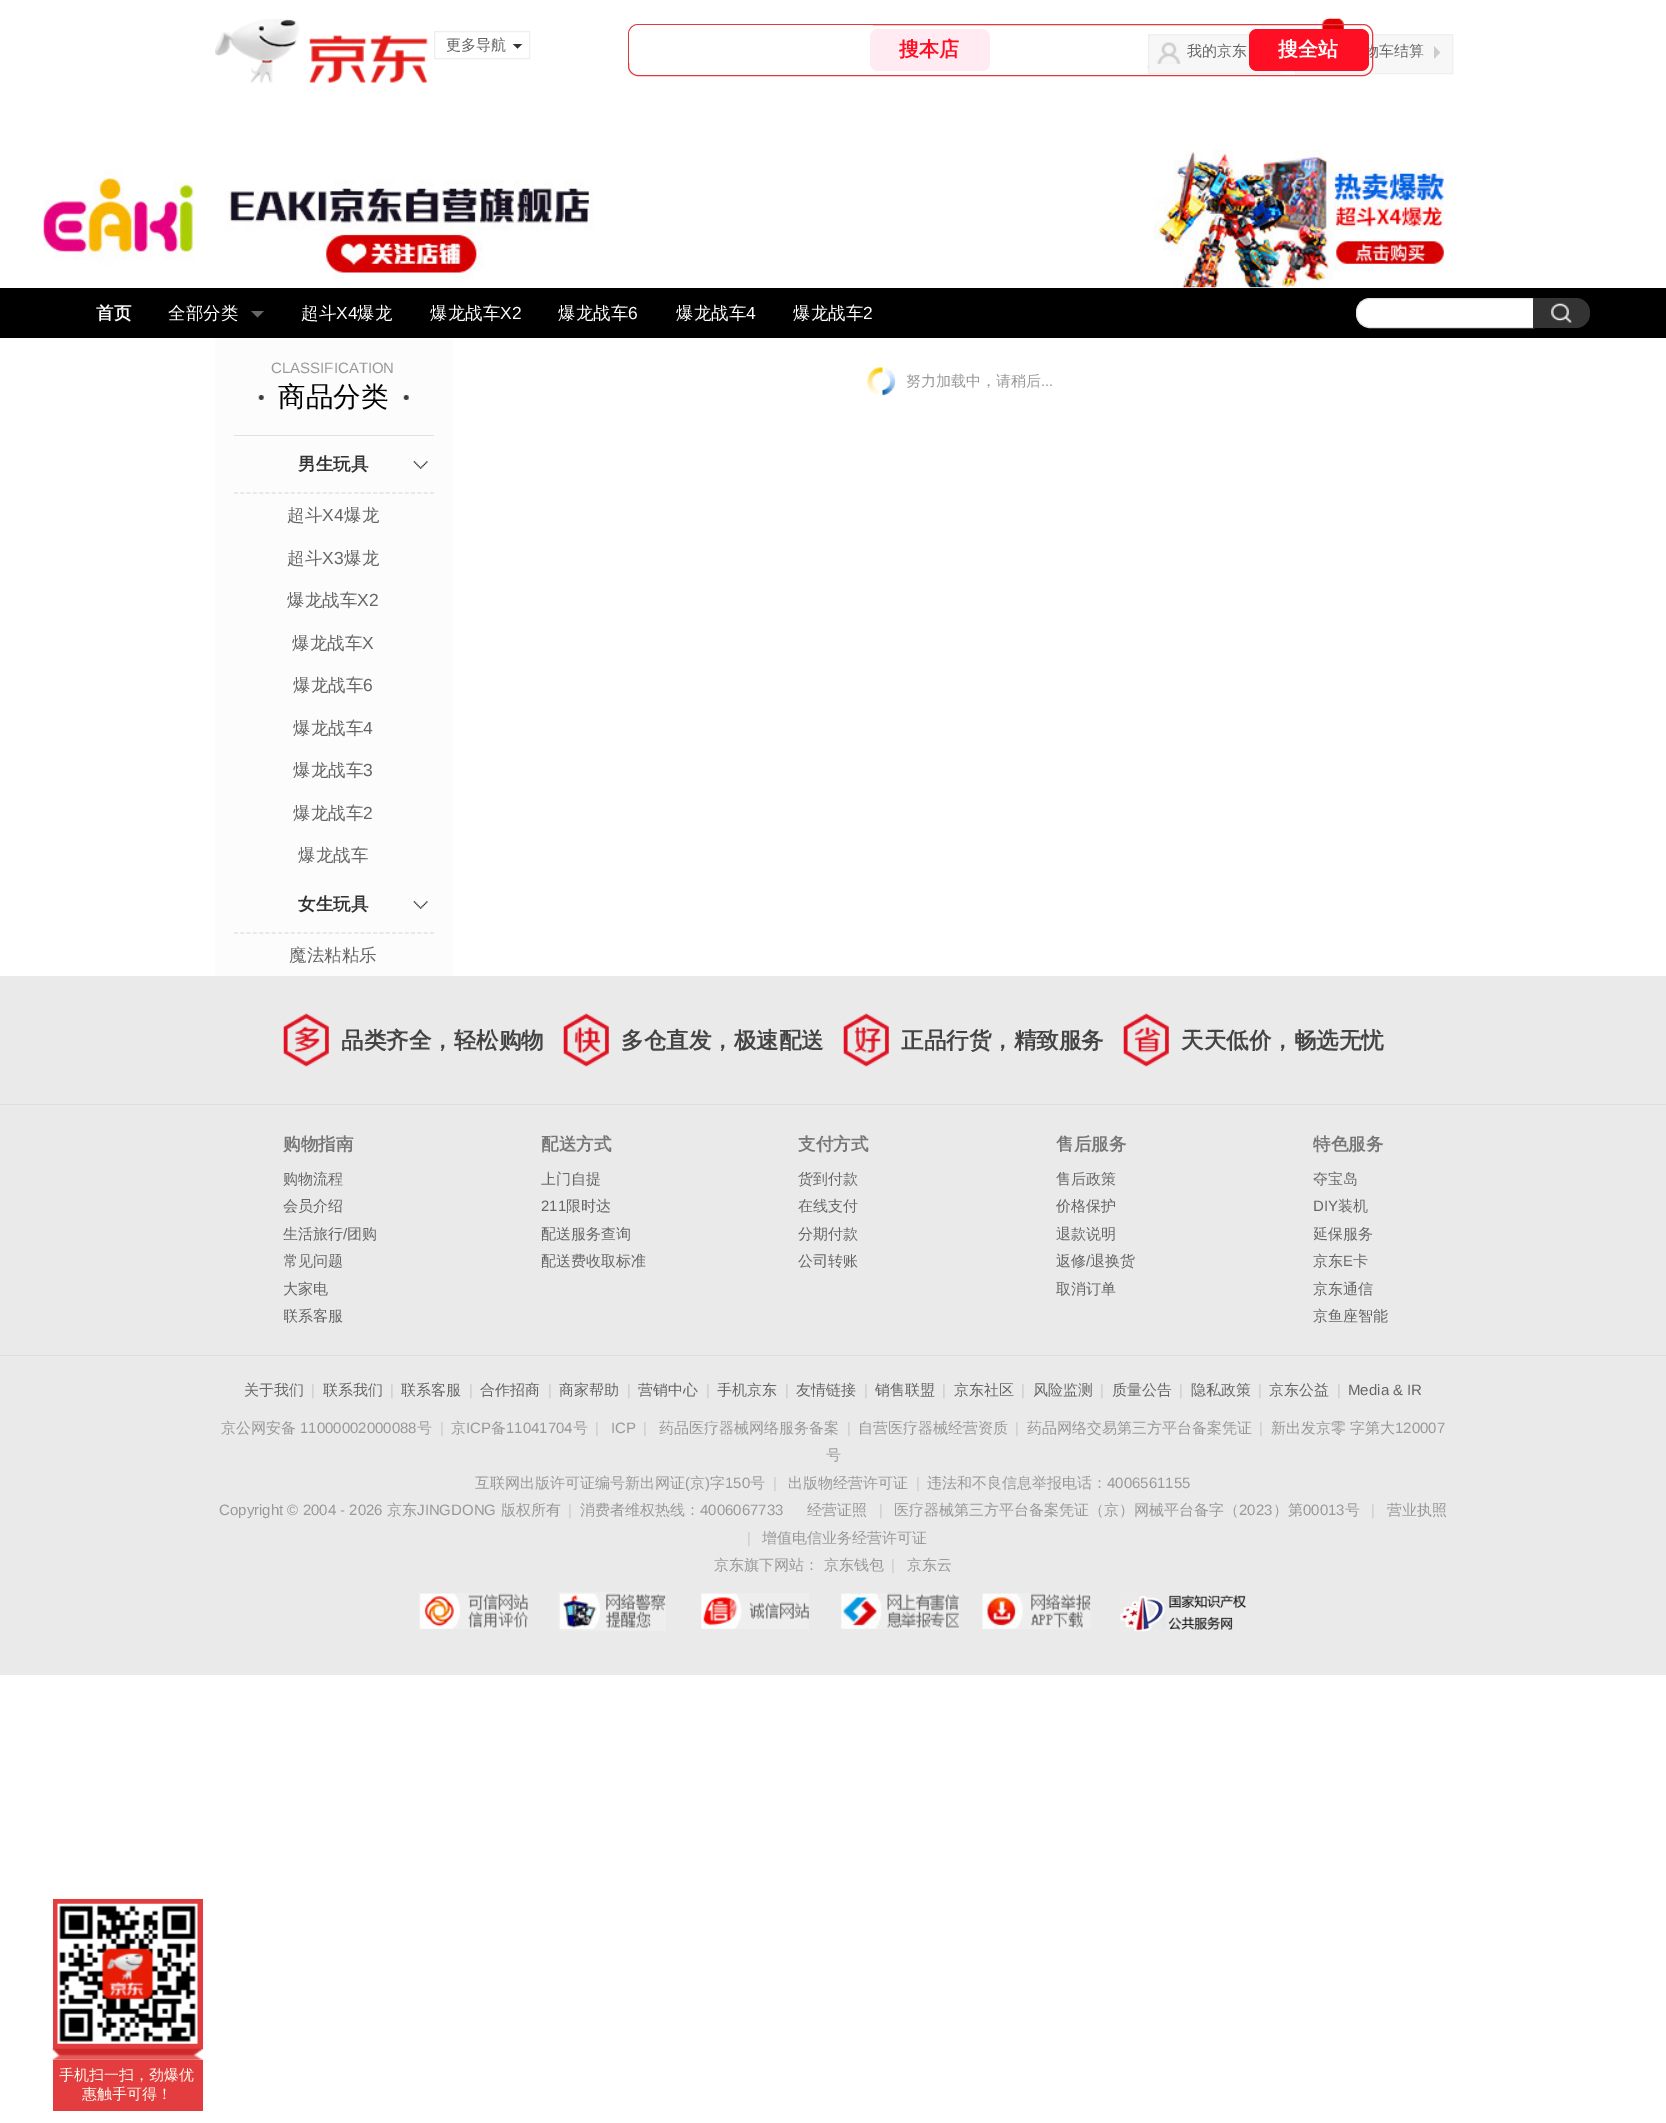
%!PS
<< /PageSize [1666 2123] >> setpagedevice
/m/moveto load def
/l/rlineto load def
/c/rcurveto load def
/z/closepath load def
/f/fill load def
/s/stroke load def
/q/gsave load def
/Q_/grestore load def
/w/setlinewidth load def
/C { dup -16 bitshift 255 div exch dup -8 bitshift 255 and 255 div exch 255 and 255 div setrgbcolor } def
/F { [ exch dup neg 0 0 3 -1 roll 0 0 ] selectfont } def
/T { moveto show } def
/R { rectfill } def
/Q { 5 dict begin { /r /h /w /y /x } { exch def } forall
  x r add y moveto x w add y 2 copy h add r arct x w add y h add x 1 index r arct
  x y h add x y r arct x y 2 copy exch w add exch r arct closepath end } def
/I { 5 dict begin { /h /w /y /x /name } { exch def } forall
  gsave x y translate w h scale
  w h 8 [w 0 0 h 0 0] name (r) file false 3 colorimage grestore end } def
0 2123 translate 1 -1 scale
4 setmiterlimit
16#FFFFFF C
0 0 1666 2123 R
(1.rgb) 215 19 213 64 I
16#EEEEEE C
434.5 31.5 95 27 rectstroke
/WenQuanYiZenHei-Medium 15 F
16#666666 C
(更多导航) 446 50 T
16#333333 C
512.5 44 m 10 0 l -5 5 l z f
16#FFFFFF C
522.5 44 m 0 10 l -5 -5 l z f
512.5 54 m 0 -10 l 5 5 l z f
16#F7F7F7 C
1149 35 130 38 R
(2.rgb) 1147 42 34 26 I
16#EFEFEF C
1148.5 34.5 131 39 rectstroke
16#F7F7F7 C
1295.5 34.5 m 157 0 l 0 39 l -157 0 l z q f Q_
16#EFEFEF C
s
(3.rgb) 1321 18 23 11 I
(4.rgb) 1328 18 16 11 I
16#666666 C
(物车结算) 1364 56 T
16#E4393C C
628.5 24.5 744 51 9.5 Q s
16#FFFFFF C
639 25 m 234 0 l 0 38 l -244 0 l 0 -28 l 0 -5.5 4.5 -10 10 -10 c z f
16#FFEBF1 C
870 29 120 42 8 Q f
/WenQuanYiZenHei-Bold 20 F
16#FF0F23 C
(搜本店) 899 56 T
1249 29 120 42 8 Q f
16#FEFEFE C
(搜全站) 1278 56 T
/WenQuanYiZenHei-Medium 15 F
16#666666 C
(我的京东) 1187 56 T
16#CCCCCC C
1434 59 m 0 -13 l 6 6.5 l z f
(5.rgb) 43 150 1401 138 I
16#000000 C
0 288 1666 50 R
/WenQuanYiZenHei-Bold 17.5 F
16#FEFEFE C
(首页) 96 319 T
/WenQuanYiZenHei-Medium 17.5 F
(全部分类) 168 319 T
16#666666 C
251 311 m 13 0 l -6.5 6.5 l z f
16#FEFEFE C
(超斗) 301 319 T
/LiberationSans-Regular 17.5 F
(X4) 336 319 T
/WenQuanYiZenHei-Medium 17.5 F
(爆龙) 357 319 T
(爆龙战车) 430 319 T
/LiberationSans-Regular 17.5 F
(X2) 500 319 T
/WenQuanYiZenHei-Medium 17.5 F
(爆龙战车) 558 319 T
/LiberationSans-Regular 17.5 F
(6) 628 319 T
/WenQuanYiZenHei-Medium 17.5 F
(爆龙战车) 676 319 T
/LiberationSans-Regular 17.5 F
(4) 746 319 T
/WenQuanYiZenHei-Medium 17.5 F
(爆龙战车) 793 319 T
/LiberationSans-Regular 17.5 F
(2) 863 319 T
16#FFFFFF C
1370 298.5 m 163.5 0 l 0 29 l -163.5 0 l -7.5 0 -13.5 -6 -13.5 -13.5 c 0 -2 l 0 -7.5 6 -13.5 13.5 -13.5 c z q f Q_
16#E1E1E1 C
s
16#333333 C
1533 298 m 43 0 l 7.5 0 14 6.5 14 14 c 0 2 l 0 7.5 -6.5 14 -14 14 c -43 0 l z f
(6.rgb) 1551 303 21 20 I
16#FCFCFC C
215 338 238 638 R
/LiberationSans-Regular 15 F
16#999999 C
(CLASSIFICATION) 271 373 T
16#E1E1E1 C
234 435 200 1 R
(7.rgb) 258 395 6 5 I
/WenQuanYiZenHei-Medium 27.5 F
16#000000 C
(商品分类) 278 406 T
(8.rgb) 403 395 6 5 I
16#E1E1E1 C
1.2 w
[3.75 2.58] 0 setdash
234 493 m 200 0 l s
/WenQuanYiZenHei-Bold 17.5 F
16#333333 C
(男生玩具) 298 470 T
(9.rgb) 413 461 15 8 I
/WenQuanYiZenHei-Medium 17.5 F
16#666666 C
(超斗) 287 521 T
/LiberationSans-Regular 17.5 F
(X4) 322 521 T
/WenQuanYiZenHei-Medium 17.5 F
(爆龙) 344 521 T
(超斗) 287 564 T
/LiberationSans-Regular 17.5 F
(X3) 322 564 T
/WenQuanYiZenHei-Medium 17.5 F
(爆龙) 344 564 T
(爆龙战车) 287 606 T
/LiberationSans-Regular 17.5 F
(X2) 357 606 T
/WenQuanYiZenHei-Medium 17.5 F
(爆龙战车) 292 649 T
/LiberationSans-Regular 17.5 F
(X) 362 649 T
/WenQuanYiZenHei-Medium 17.5 F
(爆龙战车) 293 691 T
/LiberationSans-Regular 17.5 F
(6) 363 691 T
/WenQuanYiZenHei-Medium 17.5 F
(爆龙战车) 293 734 T
/LiberationSans-Regular 17.5 F
(4) 363 734 T
/WenQuanYiZenHei-Medium 17.5 F
(爆龙战车) 293 776 T
/LiberationSans-Regular 17.5 F
(3) 363 776 T
/WenQuanYiZenHei-Medium 17.5 F
(爆龙战车) 293 819 T
/LiberationSans-Regular 17.5 F
(2) 363 819 T
/WenQuanYiZenHei-Medium 17.5 F
(爆龙战车) 298 861 T
16#E1E1E1 C
234 933 m 200 0 l s
/WenQuanYiZenHei-Bold 17.5 F
16#333333 C
(女生玩具) 298 910 T
(9.rgb) 413 901 15 8 I
/WenQuanYiZenHei-Medium 17.5 F
16#666666 C
(魔法粘粘乐) 289 961 T
(10.rgb) 867 367 29 29 I
/WenQuanYiZenHei-Medium 15 F
16#999999 C
(努力加载中，请稍后) 906 386 T
/LiberationSans-Regular 15 F
(...) 1041 386 T
16#EAEAEA C
0 976 1666 699 R
(11.rgb) 283 1013 46 54 I
/WenQuanYiZenHei-Bold 22.5 F
16#444444 C
(品类齐全，轻松购物) 341 1048 T
(12.rgb) 563 1013 46 54 I
(多仓直发，极速配送) 621 1048 T
(13.rgb) 843 1013 46 54 I
(正品行货，精致服务) 901 1048 T
(14.rgb) 1123 1013 46 54 I
(天天低价，畅选无忧) 1181 1048 T
16#DEDEDE C
0 1104 1666 1 R
0 1355 1666 1 R
/WenQuanYiZenHei-Bold 17.5 F
16#777777 C
(购物指南) 283 1150 T
/WenQuanYiZenHei-Medium 15 F
16#666666 C
(购物流程) 283 1184 T
(会员介绍) 283 1211 T
(生活旅行) 283 1239 T
/LiberationSans-Regular 15 F
(/) 343 1239 T
/WenQuanYiZenHei-Medium 15 F
(团购) 347 1239 T
q
284 1248 257 27 rectclip
(常见问题) 283 1266 T
Q_
(大家电) 283 1294 T
q
284 1303 257 27 rectclip
(联系客服) 283 1321 T
Q_
/WenQuanYiZenHei-Bold 17.5 F
16#777777 C
(配送方式) 541 1150 T
/WenQuanYiZenHei-Medium 15 F
16#666666 C
(上门自提) 541 1184 T
/LiberationSans-Regular 15 F
(211) 541 1211 T
/WenQuanYiZenHei-Medium 15 F
(限时达) 566 1211 T
(配送服务查询) 541 1239 T
(配送费收取标准) 541 1266 T
/WenQuanYiZenHei-Bold 17.5 F
16#777777 C
(支付方式) 798 1150 T
/WenQuanYiZenHei-Medium 15 F
16#666666 C
(货到付款) 798 1184 T
(在线支付) 798 1211 T
(分期付款) 798 1239 T
(公司转账) 798 1266 T
/WenQuanYiZenHei-Bold 17.5 F
16#777777 C
(售后服务) 1056 1150 T
/WenQuanYiZenHei-Medium 15 F
16#666666 C
(售后政策) 1056 1184 T
(价格保护) 1056 1211 T
(退款说明) 1056 1239 T
(返修) 1056 1266 T
/LiberationSans-Regular 15 F
(/) 1086 1266 T
/WenQuanYiZenHei-Medium 15 F
(退换货) 1090 1266 T
(取消订单) 1056 1294 T
/WenQuanYiZenHei-Bold 17.5 F
16#777777 C
(特色服务) 1313 1150 T
/WenQuanYiZenHei-Medium 15 F
16#666666 C
(夺宝岛) 1313 1184 T
/LiberationSans-Regular 15 F
(DIY) 1313 1211 T
/WenQuanYiZenHei-Medium 15 F
(装机) 1338 1211 T
q
1314 1220 257 28 rectclip
(延保服务) 1313 1239 T
Q_
(京东) 1313 1266 T
/LiberationSans-Regular 15 F
(E) 1343 1266 T
/WenQuanYiZenHei-Medium 15 F
(卡) 1353 1266 T
(京东通信) 1313 1294 T
(京鱼座智能) 1313 1321 T
(关于我们) 244 1395 T
/LiberationSans-Regular 15 F
16#CCCCCC C
(|) 311 1395 T
/WenQuanYiZenHei-Medium 15 F
16#666666 C
(联系我们) 323 1395 T
/LiberationSans-Regular 15 F
16#CCCCCC C
(|) 390 1395 T
/WenQuanYiZenHei-Medium 15 F
16#666666 C
(联系客服) 401 1395 T
/LiberationSans-Regular 15 F
16#CCCCCC C
(|) 469 1395 T
/WenQuanYiZenHei-Medium 15 F
16#666666 C
(合作招商) 480 1395 T
/LiberationSans-Regular 15 F
16#CCCCCC C
(|) 548 1395 T
/WenQuanYiZenHei-Medium 15 F
16#666666 C
(商家帮助) 559 1395 T
/LiberationSans-Regular 15 F
16#CCCCCC C
(|) 627 1395 T
/WenQuanYiZenHei-Medium 15 F
16#666666 C
(营销中心) 638 1395 T
/LiberationSans-Regular 15 F
16#CCCCCC C
(|) 706 1395 T
/WenQuanYiZenHei-Medium 15 F
16#666666 C
(手机京东) 717 1395 T
/LiberationSans-Regular 15 F
16#CCCCCC C
(|) 785 1395 T
/WenQuanYiZenHei-Medium 15 F
16#666666 C
(友情链接) 796 1395 T
/LiberationSans-Regular 15 F
16#CCCCCC C
(|) 864 1395 T
/WenQuanYiZenHei-Medium 15 F
16#666666 C
(销售联盟) 875 1395 T
/LiberationSans-Regular 15 F
16#CCCCCC C
(|) 942 1395 T
/WenQuanYiZenHei-Medium 15 F
16#666666 C
(京东社区) 954 1395 T
/LiberationSans-Regular 15 F
16#CCCCCC C
(|) 1021 1395 T
/WenQuanYiZenHei-Medium 15 F
16#666666 C
(风险监测) 1033 1395 T
/LiberationSans-Regular 15 F
16#CCCCCC C
(|) 1100 1395 T
/WenQuanYiZenHei-Medium 15 F
16#666666 C
(质量公告) 1112 1395 T
/LiberationSans-Regular 15 F
16#CCCCCC C
(|) 1179 1395 T
/WenQuanYiZenHei-Medium 15 F
16#666666 C
(隐私政策) 1191 1395 T
/LiberationSans-Regular 15 F
16#CCCCCC C
(|) 1258 1395 T
/WenQuanYiZenHei-Medium 15 F
16#666666 C
(京东公益) 1269 1395 T
/LiberationSans-Regular 15 F
16#CCCCCC C
(|) 1337 1395 T
16#666666 C
(Media & IR) 1348 1395 T
/WenQuanYiZenHei-Medium 15 F
16#999999 C
(京公网安备) 221 1433 T
/LiberationSans-Regular 15 F
(11000002000088) 300 1433 T
/WenQuanYiZenHei-Medium 15 F
(号) 417 1433 T
/LiberationSans-Regular 15 F
16#CCCCCC C
(|) 440 1433 T
/WenQuanYiZenHei-Medium 15 F
16#999999 C
(京) 451 1433 T
/LiberationSans-Regular 15 F
(ICP) 466 1433 T
/WenQuanYiZenHei-Medium 15 F
(备) 491 1433 T
/LiberationSans-Regular 15 F
(11041704) 506 1433 T
/WenQuanYiZenHei-Medium 15 F
(号) 573 1433 T
/LiberationSans-Regular 15 F
16#CCCCCC C
(|) 595 1433 T
16#999999 C
(ICP) 611 1433 T
16#CCCCCC C
(|) 643 1433 T
/WenQuanYiZenHei-Medium 15 F
16#999999 C
(药品医疗器械网络服务备案) 659 1433 T
/LiberationSans-Regular 15 F
16#CCCCCC C
(|) 847 1433 T
/WenQuanYiZenHei-Medium 15 F
16#999999 C
(自营医疗器械经营资质) 858 1433 T
/LiberationSans-Regular 15 F
16#CCCCCC C
(|) 1015 1433 T
/WenQuanYiZenHei-Medium 15 F
16#999999 C
(药品网络交易第三方平台备案凭证) 1027 1433 T
/LiberationSans-Regular 15 F
16#CCCCCC C
(|) 1259 1433 T
/WenQuanYiZenHei-Medium 15 F
16#999999 C
(新出发京零 字第大) 1271 1433 T
/LiberationSans-Regular 15 F
(120007) 1395 1433 T
/WenQuanYiZenHei-Medium 15 F
(号) 826 1460 T
(互联网出版许可证编号新出网证) 475 1488 T
/LiberationSans-Regular 15 F
(\() 685 1488 T
/WenQuanYiZenHei-Medium 15 F
(京) 690 1488 T
/LiberationSans-Regular 15 F
(\)) 705 1488 T
/WenQuanYiZenHei-Medium 15 F
(字) 710 1488 T
/LiberationSans-Regular 15 F
(150) 725 1488 T
/WenQuanYiZenHei-Medium 15 F
(号) 750 1488 T
/LiberationSans-Regular 15 F
16#CCCCCC C
(|) 773 1488 T
/WenQuanYiZenHei-Medium 15 F
16#999999 C
(出版物经营许可证) 788 1488 T
/LiberationSans-Regular 15 F
16#CCCCCC C
(|) 916 1488 T
/WenQuanYiZenHei-Medium 15 F
16#999999 C
(违法和不良信息举报电话：) 927 1488 T
/LiberationSans-Regular 15 F
(4006561155) 1107 1488 T
(Copyright © 2004 - 2026) 219 1515 T
/WenQuanYiZenHei-Medium 15 F
(京东) 387 1515 T
/LiberationSans-Regular 15 F
(JINGDONG) 417 1515 T
/WenQuanYiZenHei-Medium 15 F
(版权所有) 501 1515 T
/LiberationSans-Regular 15 F
16#CCCCCC C
(|) 568 1515 T
/WenQuanYiZenHei-Medium 15 F
16#999999 C
(消费者维权热线：) 580 1515 T
/LiberationSans-Regular 15 F
(4006067733) 700 1515 T
/WenQuanYiZenHei-Medium 15 F
(经营证照) 807 1515 T
/LiberationSans-Regular 15 F
16#CCCCCC C
(|) 879 1515 T
/WenQuanYiZenHei-Medium 15 F
16#999999 C
(医疗器械第三方平台备案凭证（京）网械平台备字（) 894 1515 T
/LiberationSans-Regular 15 F
(2023) 1239 1515 T
/WenQuanYiZenHei-Medium 15 F
(）第) 1273 1515 T
/LiberationSans-Regular 15 F
(00013) 1303 1515 T
/WenQuanYiZenHei-Medium 15 F
(号) 1345 1515 T
/LiberationSans-Regular 15 F
16#CCCCCC C
(|) 1371 1515 T
/WenQuanYiZenHei-Medium 15 F
16#999999 C
(营业执照) 1387 1515 T
/LiberationSans-Regular 15 F
16#CCCCCC C
(|) 747 1543 T
/WenQuanYiZenHei-Medium 15 F
16#999999 C
(增值电信业务经营许可证) 762 1543 T
(京东旗下网站：) 714 1570 T
(京东钱包) 824 1570 T
/LiberationSans-Regular 15 F
16#CCCCCC C
(|) 891 1570 T
/WenQuanYiZenHei-Medium 15 F
16#999999 C
(京东云) 907 1570 T
(15.rgb) 419 1593 109 36 I
(16.rgb) 558 1592 108 39 I
(17.rgb) 701 1593 108 36 I
(18.rgb) 841 1593 118 36 I
(19.rgb) 982 1593 109 36 I
(20.rgb) 1120 1595 126 37 I
16#E43D3F C
53 1899 150 150 R
(21.rgb) 57 1903 141 141 I
(22.rgb) 52 2048 151 13 I
53 2060 150 51 R
16#FFFBEE C
(手机扫一扫，劲爆优) 59 2080 T
(惠触手可得！) 82 2099 T
showpage
